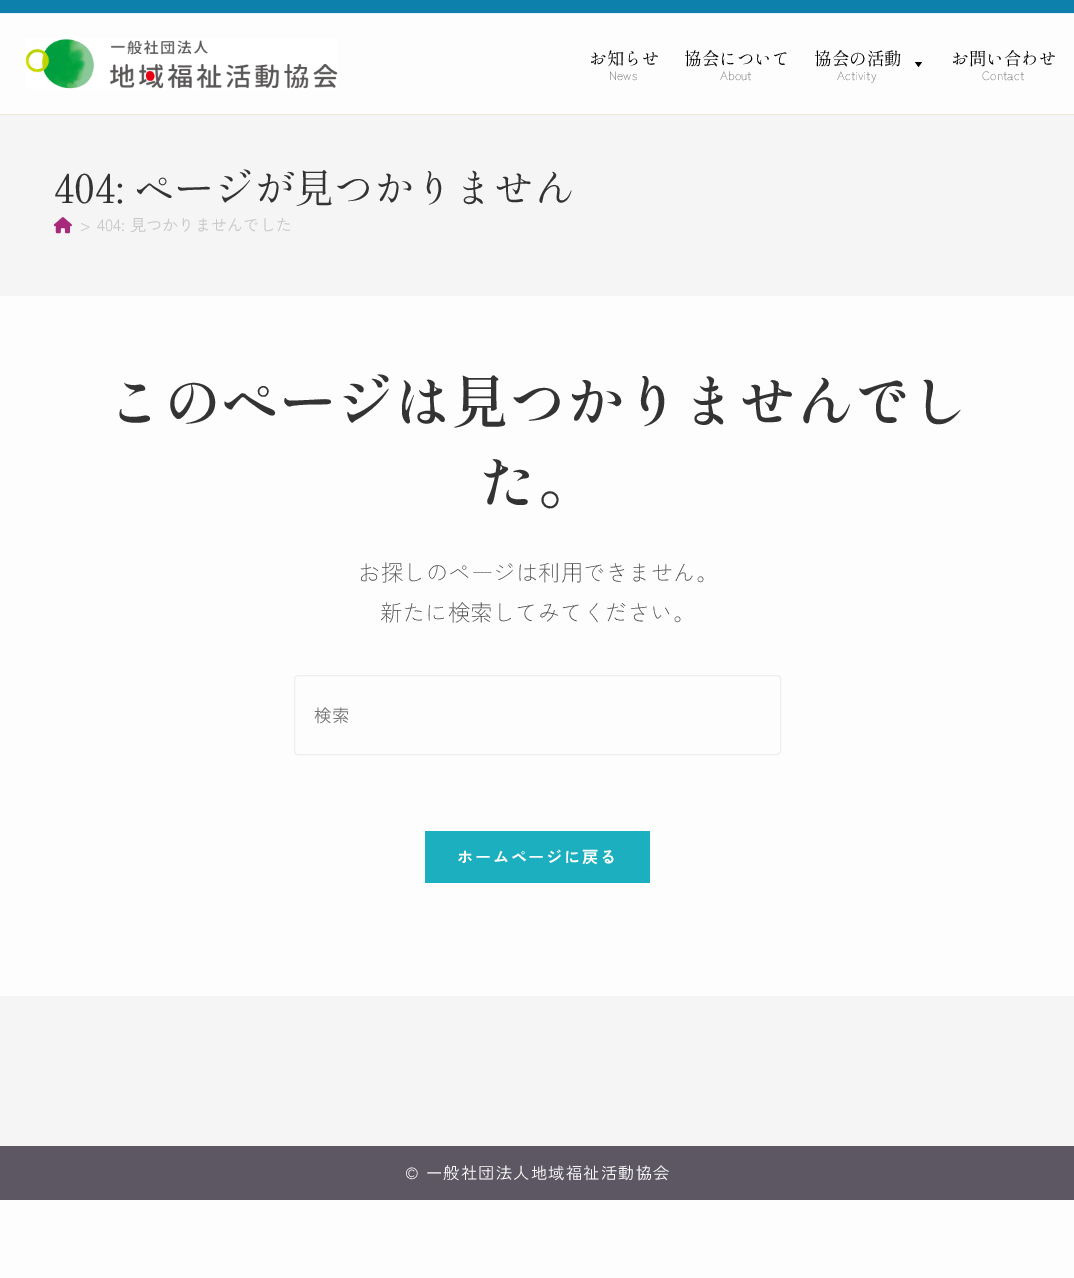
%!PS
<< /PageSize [1074 1278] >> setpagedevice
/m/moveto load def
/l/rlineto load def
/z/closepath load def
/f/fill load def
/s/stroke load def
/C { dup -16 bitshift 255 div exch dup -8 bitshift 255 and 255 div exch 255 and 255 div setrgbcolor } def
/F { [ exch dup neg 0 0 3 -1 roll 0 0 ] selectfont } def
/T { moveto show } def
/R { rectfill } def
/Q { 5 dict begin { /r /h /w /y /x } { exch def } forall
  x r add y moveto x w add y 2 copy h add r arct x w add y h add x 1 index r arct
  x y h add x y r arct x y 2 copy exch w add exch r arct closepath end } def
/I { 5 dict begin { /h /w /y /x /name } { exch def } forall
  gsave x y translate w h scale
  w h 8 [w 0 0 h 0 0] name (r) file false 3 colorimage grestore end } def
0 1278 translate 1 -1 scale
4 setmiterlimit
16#FDFDFD C
0 0 1074 1278 R
16#0D81AB C
0 0 1074 13 R
16#E4F0F5 C
0 13 1074 1 R
16#F2E7DC C
0 114 1074 1 R
(1.rgb) 25 38 313 51 I
/ShipporiMincho-Regular 17.5 F
16#000000 C
(お知らせ) 589 65 T
/ZenKakuGothicNew-Light 12 F
16#666666 C
(News) 609 80 T
/ShipporiMincho-Regular 17.5 F
16#000000 C
(協会について) 684 65 T
/ZenKakuGothicNew-Light 12 F
16#666666 C
(About) 720 80 T
/ShipporiMincho-Regular 17.5 F
16#000000 C
(協会の活動) 814 65 T
/ZenKakuGothicNew-Light 12 F
16#666666 C
(Activity) 837 80 T
16#000000 C
922 62 m -3.5 5 l -3.5 -5 l z f
/ShipporiMincho-Regular 17.5 F
(お問い合わせ) 951 65 T
/ZenKakuGothicNew-Light 12 F
16#666666 C
(Contact) 982 80 T
16#F5F5F5 C
0 115 1074 181 R
/ShipporiMincho-Regular 40 F
16#333333 C
(404: ページが見つかりません) 54 203 T
(2.rgb) 54 217 18 17 I
/ZenKakuGothicNew-Regular 16.25 F
16#C6C6C6 C
(>) 80 231 T
(404: 見つかりませんでした) 97 231 T
/ShipporiMincho-SemiBold 57.5 F
16#333333 C
(このページは見つかりませんでし) 106 423 T
(た。) 480 504 T
/ZenKakuGothicNew-Light 22.5 F
16#4A4A4A C
(お探しのページは利用できません。) 358 581 T
(新たに検索してみてください。) 380 621 T
16#EEEEEE C
294.5 675.5 486 79 3.5 Q s
/ZenKakuGothicNew-Regular 17.5 F
16#757575 C
(検索) 314 722 T
16#1BAFBF C
425 831 225 52 R
/ZenKakuGothicNew-Bold 16.25 F
16#FFFFFF C
457 863 m 1.6 0 (ホームページに戻る) ashow
16#F5F5F5 C
0 996 1074 150 R
16#5C5763 C
0 1146 1074 54 R
/ZenKakuGothicNew-Regular 16.25 F
16#FFFFFF C
405 1179 m 1.25 0 (© 一般社団法人地域福祉活動協会) ashow
showpage
